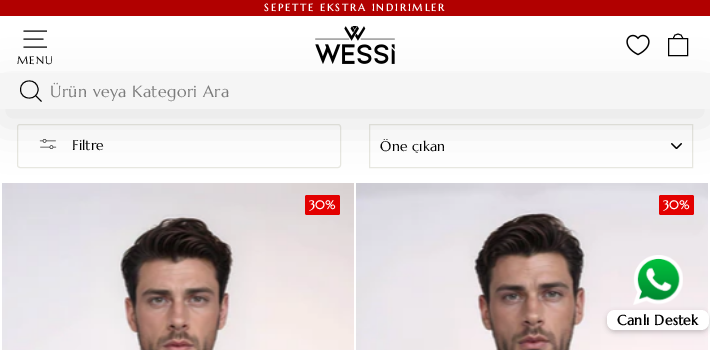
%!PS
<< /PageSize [710 350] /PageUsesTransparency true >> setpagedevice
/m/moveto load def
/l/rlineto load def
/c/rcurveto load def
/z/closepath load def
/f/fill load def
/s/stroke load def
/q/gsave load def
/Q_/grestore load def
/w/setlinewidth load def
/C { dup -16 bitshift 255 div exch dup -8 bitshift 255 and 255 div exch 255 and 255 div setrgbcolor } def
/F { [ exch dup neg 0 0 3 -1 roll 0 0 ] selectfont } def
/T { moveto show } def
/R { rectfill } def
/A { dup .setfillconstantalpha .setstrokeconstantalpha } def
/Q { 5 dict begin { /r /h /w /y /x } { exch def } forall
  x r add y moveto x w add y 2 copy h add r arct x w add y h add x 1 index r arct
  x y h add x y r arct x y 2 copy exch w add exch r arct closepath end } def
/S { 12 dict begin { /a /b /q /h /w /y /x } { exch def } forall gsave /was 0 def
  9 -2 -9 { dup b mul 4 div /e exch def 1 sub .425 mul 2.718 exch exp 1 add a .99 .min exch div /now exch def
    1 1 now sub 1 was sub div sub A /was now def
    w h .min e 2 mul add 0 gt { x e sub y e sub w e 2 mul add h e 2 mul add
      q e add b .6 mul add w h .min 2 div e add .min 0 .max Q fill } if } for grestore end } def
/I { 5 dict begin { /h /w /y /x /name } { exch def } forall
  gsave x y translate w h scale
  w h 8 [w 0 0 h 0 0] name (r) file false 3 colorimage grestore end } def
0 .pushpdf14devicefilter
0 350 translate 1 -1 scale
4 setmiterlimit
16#FFFFFF C
0 0 710 350 R
16#B10000 C
0 0 710 16 R
q
17 3 676 10 rectclip
/Marcellus-Bold 10.1 F
16#FFFFFF C
264 11 m 2 0 (SEPETTE EKSTRA İNDİRİMLER) ashow
Q_
(1.rgb) 315 26 80 38 I
(2.rgb) 626 34 24 22 I
16#000000 C
.9 w
668.5 38.5 m 19 0 l 0 17 l -19 0 l z 673.5 38.5 m 0 -6 9 -6 9 0 c s
23.5 31 m 23.5 0 l 23.5 39 m 20 0 l 23.5 47 m 23.5 0 l s
/Marcellus-Regular 11 F
17 64 m 1 0 (MENU) ashow
16#E8E8E1 C
1 w
17.5 124.5 323 43 2.5 Q s
(3.rgb) 39 139 18 10 I
(4.rgb) 671 143 11 6 I
369.5 124.5 323 43 rectstroke
(5.rgb) 2 183 352 167 I
(6.rgb) 356 183 352 167 I
16#000000 C
0 88 710 36 0 22.5 .1 S
16#F5F5F5 C
0 73 710 36 R
16#000000 C
.9 w
38 89.5 m 0 11.5 -17.5 11.5 -17.5 0 c 0 -11.5 17.5 -11.5 17.5 0 c z 41.5 101.5 m -6 -6 l s
/Marcellus-Regular 16 F
16#7B7B7B C
50 97 m .4 0 (Ürün veya Kategori Ara) ashow
/Marcellus-Regular 14 F
16#000000 C
(Filtre) 72 150 T
q
380 139 284 14 rectclip
380 151 m .25 0 (Öne çıkan) ashow
Q_
16#E30000 C
305 195 35 20 2 Q f
/Marcellus-Bold 12 F
16#FFFFFF C
309 209 m .3 0 (30%) ashow
16#E30000 C
659 195 35 20 2 Q f
16#FFFFFF C
663 209 m .3 0 (30%) ashow
(7.rgb) 633 255 50 50 I
16#000000 C
607 312 102 20 8 2.5 .2 S
16#FFFFFF C
607 310 102 20 8 Q f
/Marcellus-Bold 14 F
16#000000 C
617 325 m .3 0 (Canlı Destek) ashow
.poppdf14devicefilter showpage
